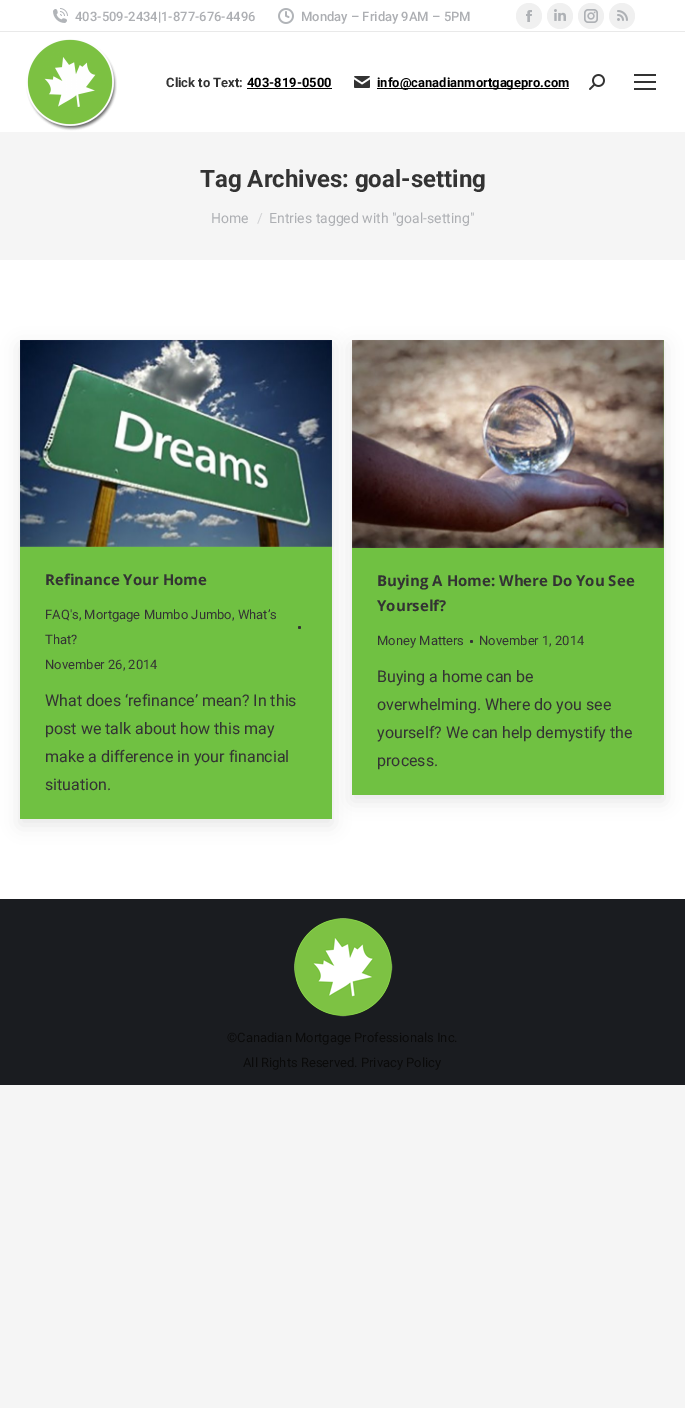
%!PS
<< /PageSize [685 1408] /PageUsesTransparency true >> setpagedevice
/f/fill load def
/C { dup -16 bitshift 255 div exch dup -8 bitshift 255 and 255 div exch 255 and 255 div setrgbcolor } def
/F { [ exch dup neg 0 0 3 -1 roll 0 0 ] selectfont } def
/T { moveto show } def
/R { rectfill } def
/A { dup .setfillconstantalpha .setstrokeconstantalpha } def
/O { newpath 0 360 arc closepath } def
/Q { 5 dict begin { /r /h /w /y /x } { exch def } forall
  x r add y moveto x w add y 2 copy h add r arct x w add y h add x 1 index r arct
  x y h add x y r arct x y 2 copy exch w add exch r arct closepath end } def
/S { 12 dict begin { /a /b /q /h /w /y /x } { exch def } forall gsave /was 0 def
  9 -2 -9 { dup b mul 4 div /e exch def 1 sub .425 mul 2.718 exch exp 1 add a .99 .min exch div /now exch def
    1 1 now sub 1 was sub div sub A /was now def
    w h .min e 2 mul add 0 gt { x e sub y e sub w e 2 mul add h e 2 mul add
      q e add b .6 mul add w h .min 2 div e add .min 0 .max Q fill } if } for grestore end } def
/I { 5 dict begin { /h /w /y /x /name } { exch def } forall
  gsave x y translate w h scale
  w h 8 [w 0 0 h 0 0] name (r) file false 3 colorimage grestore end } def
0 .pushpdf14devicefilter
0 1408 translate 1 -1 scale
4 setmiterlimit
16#F5F5F5 C
0 0 685 1408 R
16#FFFFFF C
0 0 685 899 R
(1.rgb) 53 8 15 15 I
/Roboto-Medium 13 F
16#ADAFB3 C
(403-509-2434|1-877-676-4496) 75 21 T
(2.rgb) 278 8 16 16 I
(Monday – Friday 9AM – 5PM) 301 21 T
16#F0F0F0 C
529 16 13 O f
(3.rgb) 526 10 6 12 I
560 16 13 O f
(4.rgb) 554 9 12 12 I
591 16 13 O f
(5.rgb) 584 9 14 14 I
622 16 13 O f
(6.rgb) 617 10 11 11 I
16#E9E9E9 C
0 31 685 1 R
(7.rgb) 26 39 91 92 I
/Roboto-Bold 13 F
16#333333 C
(Click to Text:) 166 87 T
16#000000 C
(403-819-0500) 247 87 T
247 88 85 1 R
(8.rgb) 354 76 16 12 I
377 88 192 1 R
(info@canadianmortgagepro.com) 377 87 T
(9.rgb) 589 74 16 16 I
16#333333 C
634 74 22 2 R
634 81 22 2 R
634 88 22 2 R
16#F5F5F5 C
0 132 685 128 R
/Roboto-Bold 24 F
16#333333 C
(Tag Archives: goal-setting) 200 187 T
/Roboto-Regular 14 F
16#ADAFB3 C
(Home) 211 223 T
16#D1D2D4 C
(/) 257 223 T
16#ADAFB3 C
(Entries tagged with "goal-setting") 269 223 T
16#000000 C
20 346 312 479 0 9 .1 S
16#70C142 C
20 546 312 273 R
(10.rgb) 20 340 312 207 I
/OpenSans-Bold 15 F
16#333333 C
(Refinance Your Home) 45 585 T
/Roboto-Regular 13 F
(FAQ's, Mortgage Mumbo Jumbo, What’s) 45 619 T
299.5 627.5 1.5 O f
(That?) 45 644 T
(November 26, 2014) 45 669 T
/Roboto-Regular 16 F
(What does ‘refinance’ mean? In this) 45 706 T
(post we talk about how this may) 45 734 T
(make a difference in your financial) 45 762 T
(situation.) 45 790 T
16#000000 C
352 346 312 455 0 9 .1 S
16#70C142 C
352 340 312 455 R
(11.rgb) 352 340 312 208 I
/OpenSans-Bold 15 F
16#333333 C
(Buying A Home: Where Do You See) 377 586 T
(Yourself?) 377 611 T
/Roboto-Regular 13 F
(Money Matters) 377 645 T
471.5 641.5 1.5 O f
(November 1, 2014) 479 645 T
/Roboto-Regular 16 F
(Buying a home can be) 377 682 T
(overwhelming. Where do you see) 377 710 T
(yourself? We can help demystify the) 377 738 T
(process.) 377 766 T
16#1A1C20 C
0 899 685 186 R
(12.rgb) 294 918 99 99 I
/Roboto-Regular 13 F
16#0A0A0A C
(©Canadian Mortgage Professionals Inc.) 227 1042 T
(All Rights Reserved. Privacy Policy) 243 1067 T
.poppdf14devicefilter showpage
